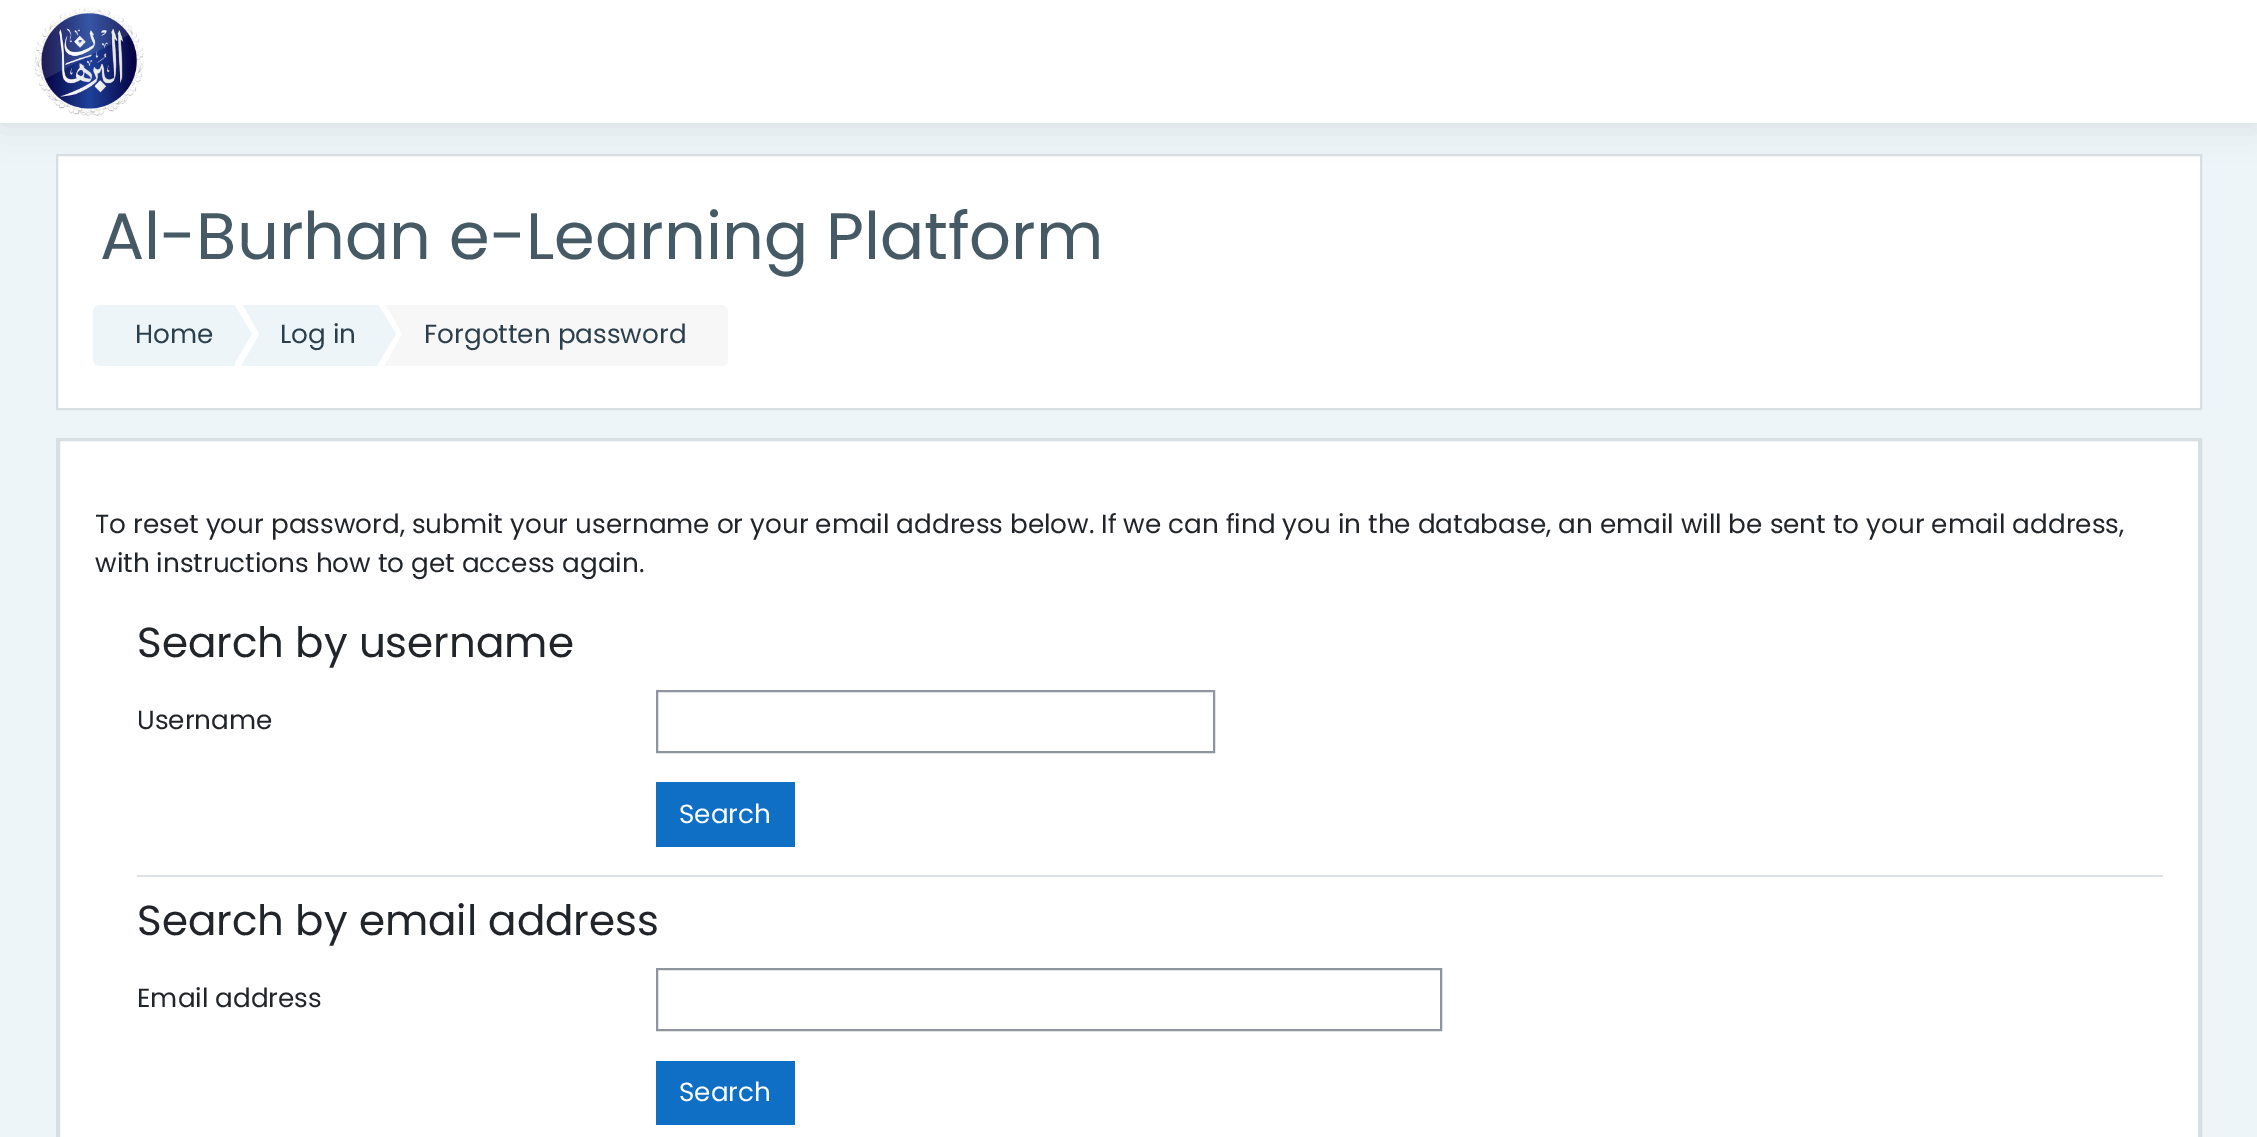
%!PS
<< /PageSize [2257 1137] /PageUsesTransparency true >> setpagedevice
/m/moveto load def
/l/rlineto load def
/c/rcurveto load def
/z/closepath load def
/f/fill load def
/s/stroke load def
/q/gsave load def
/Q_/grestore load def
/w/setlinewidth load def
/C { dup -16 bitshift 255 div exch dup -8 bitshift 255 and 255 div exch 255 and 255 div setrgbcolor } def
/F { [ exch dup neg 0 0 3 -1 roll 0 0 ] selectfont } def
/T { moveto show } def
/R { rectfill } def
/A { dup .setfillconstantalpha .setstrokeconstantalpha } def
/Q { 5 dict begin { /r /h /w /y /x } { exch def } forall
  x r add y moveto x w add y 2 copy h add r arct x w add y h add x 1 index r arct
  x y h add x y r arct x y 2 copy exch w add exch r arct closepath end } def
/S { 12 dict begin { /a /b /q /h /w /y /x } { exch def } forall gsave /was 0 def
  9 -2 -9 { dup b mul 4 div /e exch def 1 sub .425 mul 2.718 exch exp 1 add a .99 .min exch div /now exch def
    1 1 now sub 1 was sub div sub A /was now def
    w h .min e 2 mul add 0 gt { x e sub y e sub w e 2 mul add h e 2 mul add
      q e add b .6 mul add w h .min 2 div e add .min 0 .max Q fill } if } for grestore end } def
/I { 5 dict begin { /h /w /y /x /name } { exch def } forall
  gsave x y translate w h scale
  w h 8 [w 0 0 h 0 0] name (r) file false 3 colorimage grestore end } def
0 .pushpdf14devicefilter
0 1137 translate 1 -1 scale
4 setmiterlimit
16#EEF5F9 C
0 0 2257 1137 R
16#FFFFFF C
57 155 m 2144 0 l 0 254 l -2144 0 l z q f Q_
16#D7DFE3 C
2 w
s
16#000000 C
0 0 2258 123 0 17.5 .1 S
16#FFFFFF C
0 0 2257 123 R
(1.rgb) 35 7 109 109 I
/Poppins-Regular 65.6 F
16#455A64 C
(Al-Burhan e-Learning Platform) 100 259 T
16#EEF5F9 C
100 305 m 135 0 l 0 61 l -135 0 l -4 0 -7 -3 -7 -7 c 0 -47 l 0 -4 3 -7 7 -7 c z f
/Poppins-Regular 26.25 F
16#2C3F4C C
(Home) 135 343 T
16#EEF5F9 C
242 305 136 61 R
16#FFFFFF C
242 364 m 0 -60 l 17 30 l z f
16#EEF5F9 C
234 364 m 0 -60 l 18 30 l z f
16#2C3F4C C
(Log in) 280 343 T
16#F7F7F7 C
385 305 m 336 0 l 4 0 7 3 7 7 c 0 47 l 0 4 -3 7 -7 7 c -336 0 l z f
16#FFFFFF C
385 364 m 0 -60 l 17 30 l z f
16#EEF5F9 C
378 364 m 0 -60 l 18 30 l z f
16#2C3F4C C
(Forgotten password) 424 343 T
16#D7DFE3 C
57 439 2144 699 rectstroke
16#FFFFFF C
59 440 m 2140 0 l 0 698 l -2140 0 l z q f Q_
16#D7DFE3 C
s
16#212529 C
(To reset your password, submit your username or your email address below. If we can find you in the database, an email will be sent to your email address,) 95 533 T
(with instructions how to get access again.) 95 572 T
16#DEE2E6 C
137 875 2026 2 R
/Poppins-Regular 42 F
16#212529 C
(Search by username) 137 657 T
/Poppins-Regular 26.25 F
(Username) 137 729 T
16#8F959E C
657 691 557 61 rectstroke
16#0F6FC5 C
656 782 139 65 R
16#FFFFFF C
(Search) 679 823 T
/Poppins-Regular 42 F
16#212529 C
(Search by email address) 137 935 T
/Poppins-Regular 26.25 F
(Email address) 137 1007 T
16#8F959E C
657 969 784 61 rectstroke
16#0F6FC5 C
656 1061 139 64 R
16#FFFFFF C
(Search) 679 1101 T
.poppdf14devicefilter showpage
